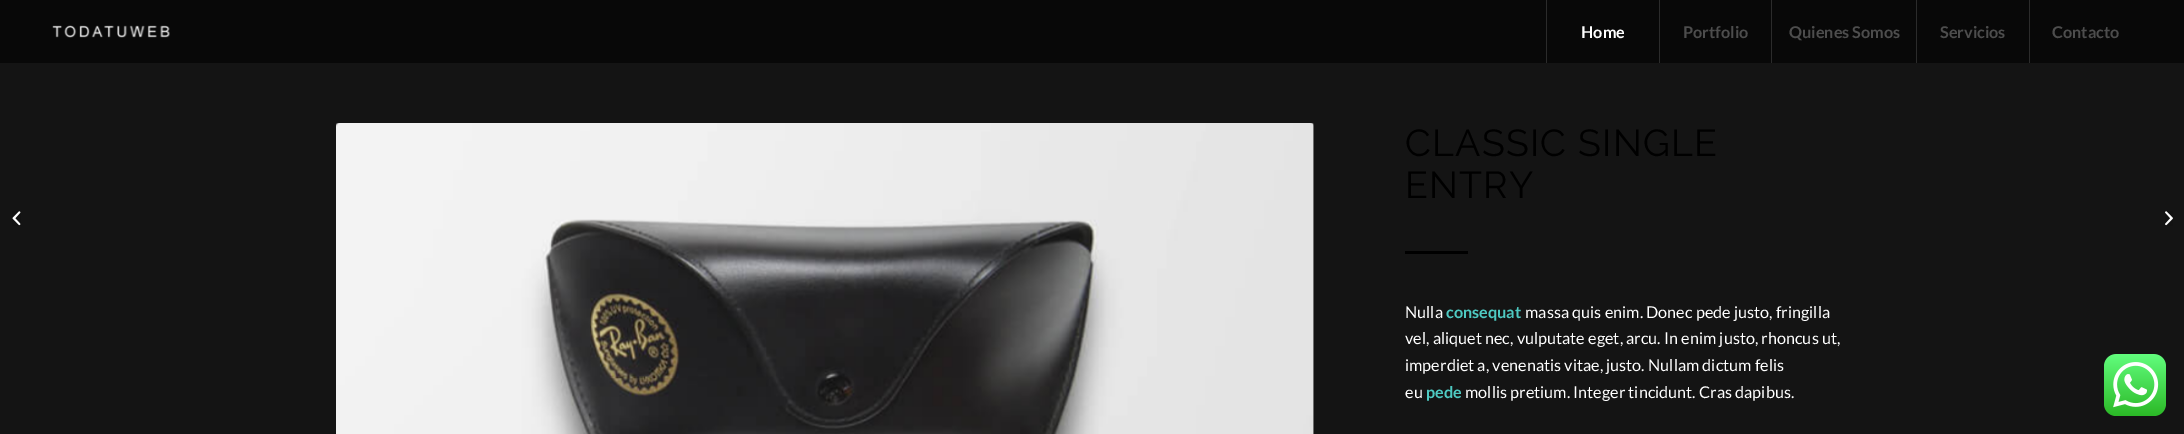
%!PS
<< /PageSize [2184 434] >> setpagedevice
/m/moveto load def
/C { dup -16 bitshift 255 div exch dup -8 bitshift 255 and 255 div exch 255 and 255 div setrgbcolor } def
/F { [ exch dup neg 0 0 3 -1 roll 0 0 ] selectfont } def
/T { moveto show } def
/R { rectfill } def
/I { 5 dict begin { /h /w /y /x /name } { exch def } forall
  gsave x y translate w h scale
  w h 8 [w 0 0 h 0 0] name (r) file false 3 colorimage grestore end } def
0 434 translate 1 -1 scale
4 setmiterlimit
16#141414 C
0 0 2184 434 R
16#080808 C
0 0 2184 63 R
(1.rgb) 52 25 118 13 I
16#2B2B2B C
1546 0 1 63 R
/Lato-Bold 16.25 F
16#FFFFFF C
(Home) 1581 38 T
16#2B2B2B C
1659 0 1 63 R
16#4D4D4D C
(Portfolio) 1683 38 T
16#2B2B2B C
1771 0 1 63 R
16#4D4D4D C
(Quienes Somos) 1789 38 T
16#2B2B2B C
1916 0 1 63 R
16#4D4D4D C
(Servicios) 1940 38 T
16#2B2B2B C
2029 0 1 63 R
16#4D4D4D C
(Contacto) 2052 38 T
(2.rgb) 12 211 9 15 I
(3.rgb) 336 123 978 311 I
/Raleway-Thin 37.5 F
16#000000 C
1405 156 m 1.25 0 (CLASSIC SINGLE) ashow
1405 198 m 1.25 0 (ENTRY) ashow
1405 251 63 3 R
/Lato-Regular 16.25 F
16#FFFFFF C
(Nulla) 1405 318 T
/Lato-Bold 16.25 F
16#4ECAC2 C
(consequat) 1446 318 T
/Lato-Regular 16.25 F
16#FFFFFF C
(massa quis enim. Donec pede justo, fringilla) 1525 318 T
(vel, aliquet nec, vulputate eget, arcu. In enim justo, rhoncus ut,) 1405 344 T
(imperdiet a, venenatis vitae, justo. Nullam dictum felis) 1405 371 T
(eu) 1405 398 T
/Lato-Bold 16.25 F
16#4ECAC2 C
(pede) 1426 398 T
/Lato-Regular 16.25 F
16#FFFFFF C
(mollis pretium. Integer tincidunt. Cras dapibus.) 1465 398 T
(4.rgb) 2165 211 8 15 I
(5.rgb) 2104 354 62 62 I
showpage
